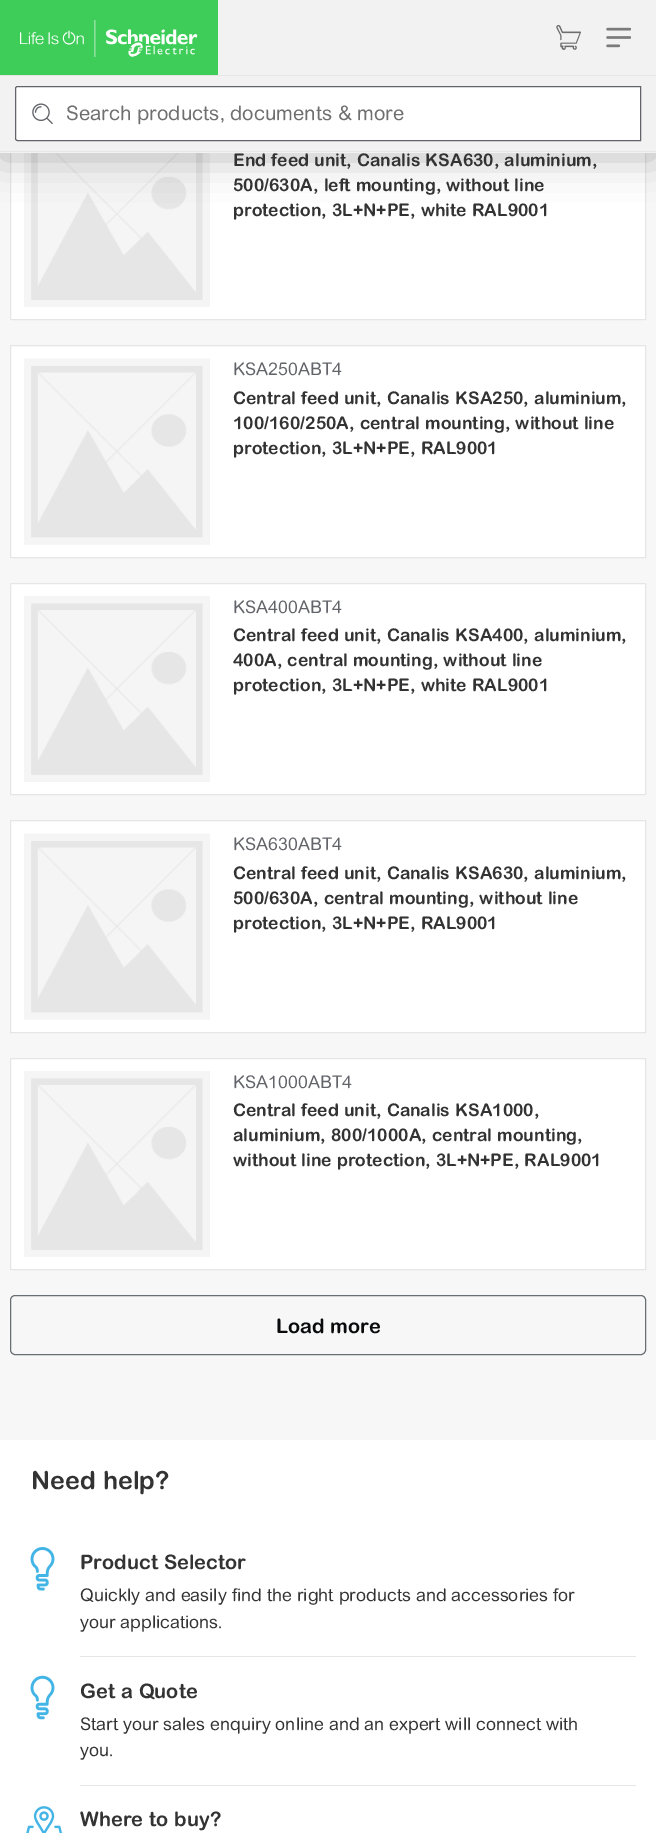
%!PS
<< /PageSize [656 1833] /PageUsesTransparency true >> setpagedevice
/m/moveto load def
/l/rlineto load def
/c/rcurveto load def
/z/closepath load def
/f/fill load def
/s/stroke load def
/q/gsave load def
/Q_/grestore load def
/C { dup -16 bitshift 255 div exch dup -8 bitshift 255 and 255 div exch 255 and 255 div setrgbcolor } def
/F { [ exch dup neg 0 0 3 -1 roll 0 0 ] selectfont } def
/T { moveto show } def
/R { rectfill } def
/A { dup .setfillconstantalpha .setstrokeconstantalpha } def
/Q { 5 dict begin { /r /h /w /y /x } { exch def } forall
  x r add y moveto x w add y 2 copy h add r arct x w add y h add x 1 index r arct
  x y h add x y r arct x y 2 copy exch w add exch r arct closepath end } def
/S { 12 dict begin { /a /b /q /h /w /y /x } { exch def } forall gsave /was 0 def
  9 -2 -9 { dup b mul 4 div /e exch def 1 sub .425 mul 2.718 exch exp 1 add a .99 .min exch div /now exch def
    1 1 now sub 1 was sub div sub A /was now def
    w h .min e 2 mul add 0 gt { x e sub y e sub w e 2 mul add h e 2 mul add
      q e add b .6 mul add w h .min 2 div e add .min 0 .max Q fill } if } for grestore end } def
/I { 5 dict begin { /h /w /y /x /name } { exch def } forall
  gsave x y translate w h scale
  w h 8 [w 0 0 h 0 0] name (r) file false 3 colorimage grestore end } def
0 .pushpdf14devicefilter
0 1833 translate 1 -1 scale
4 setmiterlimit
16#F7F7F7 C
0 0 656 1833 R
16#FFFFFF C
11 153 634 166 R
16#E7E6E6 C
10.5 108.5 635 211 rectstroke
(5.rgb) 24 153 186 154 I
16#000000 C
0 5 656 153 0 20 .25 S
16#F3F2F2 C
0 0 656 153 R
16#E7E6E6 C
0 151 656 1 R
16#3DCD58 C
0 0 218 75 R
(1.rgb) 20 20 178 37 I
(2.rgb) 556 25 25 25 I
(3.rgb) 606 27 25 21 I
16#E7E6E6 C
0 75 656 1 R
16#FFFFFF C
17.5 86.5 m 623 0 l 0 54 l -623 0 l -1 0 -2 -1 -2 -2 c 0 -50 l 0 -1 1 -2 2 -2 c z q f Q_
16#626469 C
s
(4.rgb) 32 103 21 21 I
/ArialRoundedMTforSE-Regular 20 F
16#6F6F6F C
(Search products, documents & more) 66 120 T
/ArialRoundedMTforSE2-Bold 17.5 F
16#333333 C
(End feed unit, Canalis KSA630, aluminium,) 233 166 T
(500/630A, left mounting, without line) 233 191 T
(protection, 3L+N+PE, white RAL9001) 233 216 T
16#FFFFFF C
10.5 345.5 m 635 0 l 0 212 l -635 0 l z q f Q_
16#E7E6E6 C
s
(6.rgb) 24 358 186 187 I
/ArialRoundedMTforSE-Regular 17.5 F
16#626469 C
(KSA250ABT4) 233 375 T
/ArialRoundedMTforSE2-Bold 17.5 F
16#333333 C
(Central feed unit, Canalis KSA250, aluminium,) 233 404 T
(100/160/250A, central mounting, without line) 233 429 T
(protection, 3L+N+PE, RAL9001) 233 454 T
16#FFFFFF C
10.5 583.5 m 635 0 l 0 211 l -635 0 l z q f Q_
16#E7E6E6 C
s
(7.rgb) 24 596 186 186 I
/ArialRoundedMTforSE-Regular 17.5 F
16#626469 C
(KSA400ABT4) 233 613 T
/ArialRoundedMTforSE2-Bold 17.5 F
16#333333 C
(Central feed unit, Canalis KSA400, aluminium,) 233 641 T
(400A, central mounting, without line) 233 666 T
(protection, 3L+N+PE, white RAL9001) 233 691 T
16#FFFFFF C
10.5 820.5 m 635 0 l 0 212 l -635 0 l z q f Q_
16#E7E6E6 C
s
(6.rgb) 24 833 186 187 I
/ArialRoundedMTforSE-Regular 17.5 F
16#626469 C
(KSA630ABT4) 233 850 T
/ArialRoundedMTforSE2-Bold 17.5 F
16#333333 C
(Central feed unit, Canalis KSA630, aluminium,) 233 879 T
(500/630A, central mounting, without line) 233 904 T
(protection, 3L+N+PE, RAL9001) 233 929 T
16#FFFFFF C
10.5 1058.5 m 635 0 l 0 211 l -635 0 l z q f Q_
16#E7E6E6 C
s
(7.rgb) 24 1071 186 186 I
/ArialRoundedMTforSE-Regular 17.5 F
16#626469 C
(KSA1000ABT4) 233 1088 T
/ArialRoundedMTforSE2-Bold 17.5 F
16#333333 C
(Central feed unit, Canalis KSA1000,) 233 1116 T
(aluminium, 800/1000A, central mounting,) 233 1141 T
(without line protection, 3L+N+PE, RAL9001) 233 1166 T
16#676F73 C
10.5 1295.5 635 59 4.5 Q s
/ArialRoundedMTforSE-Bold 20 F
16#090B0C C
(Load more) 276 1333 T
16#FFFFFF C
0 1440 656 393 R
/ArialRoundedMTforSE-Bold 25 F
16#333333 C
(Need help?) 31 1489 T
(8.rgb) 30 1547 25 44 I
/ArialRoundedMTforSE-Bold 20 F
(Product Selector) 80 1569 T
/ArialRoundedMTforSE2-Regular 17.5 F
(Quickly and easily find the right products and accessories for) 80 1601 T
(your applications.) 80 1628 T
16#E7E6E6 C
80 1656 556 1 R
(9.rgb) 30 1675 25 45 I
/ArialRoundedMTforSE-Bold 20 F
16#333333 C
(Get a Quote) 80 1698 T
/ArialRoundedMTforSE2-Regular 17.5 F
(Start your sales enquiry online and an expert will connect with) 80 1730 T
(you.) 80 1756 T
16#E7E6E6 C
80 1785 556 1 R
(10.rgb) 26 1806 36 27 I
/ArialRoundedMTforSE-Bold 20 F
16#333333 C
(Where to buy?) 80 1826 T
.poppdf14devicefilter showpage
